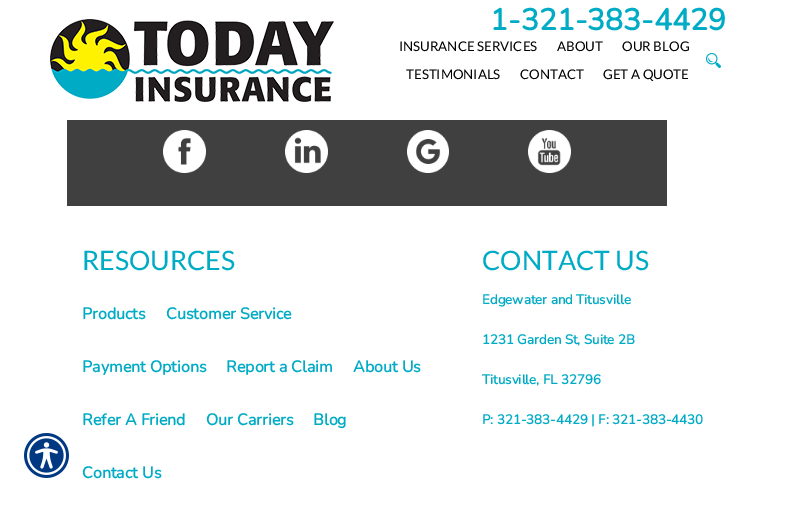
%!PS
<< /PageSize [801 507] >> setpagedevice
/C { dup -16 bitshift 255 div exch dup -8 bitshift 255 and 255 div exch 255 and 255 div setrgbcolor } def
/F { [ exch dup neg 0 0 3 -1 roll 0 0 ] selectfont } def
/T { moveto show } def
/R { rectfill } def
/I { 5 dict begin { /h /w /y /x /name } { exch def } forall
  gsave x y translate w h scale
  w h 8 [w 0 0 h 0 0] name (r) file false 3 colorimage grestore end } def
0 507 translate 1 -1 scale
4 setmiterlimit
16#FFFFFF C
0 0 801 507 R
(1.rgb) 24 433 45 45 I
(2.rgb) 50 19 284 83 I
/Nunito-Bold 30 F
16#00ABC5 C
(1-321-383-4429) 490 30 T
/Lato-Regular 13.3 F
16#000000 C
(INSURANCE SERVICES) 399 51 T
(ABOUT) 557 51 T
(OUR BLOG) 622 51 T
(TESTIMONIALS) 406 79 T
(CONTACT) 520 79 T
(GET A QUOTE) 603 79 T
(3.rgb) 706 53 15 15 I
16#404040 C
67 120 600 86 R
(4.rgb) 163 130 43 43 I
(5.rgb) 285 130 43 43 I
(6.rgb) 407 130 42 43 I
(7.rgb) 528 130 43 43 I
/Lato-Regular 26.75 F
16#00ABC5 C
(RESOURCES) 82 270 T
/Nunito-Bold 16 F
(Products) 82 319 T
(Customer Service) 166 319 T
(Payment Options) 82 372 T
(Report a Claim) 226 372 T
(About Us) 353 372 T
(Refer A Friend) 82 425 T
(Our Carriers) 206 425 T
(Blog) 313 425 T
(Contact Us) 82 478 T
/Lato-Regular 26.75 F
(CONTACT US) 482 270 T
/Nunito-Bold 13.3 F
(Edgewater and Titusville) 482 304 T
(1231 Garden St, Suite 2B) 482 344 T
(Titusville, FL 32796) 482 384 T
(P: 321-383-4429 | F: 321-383-4430) 482 424 T
showpage
